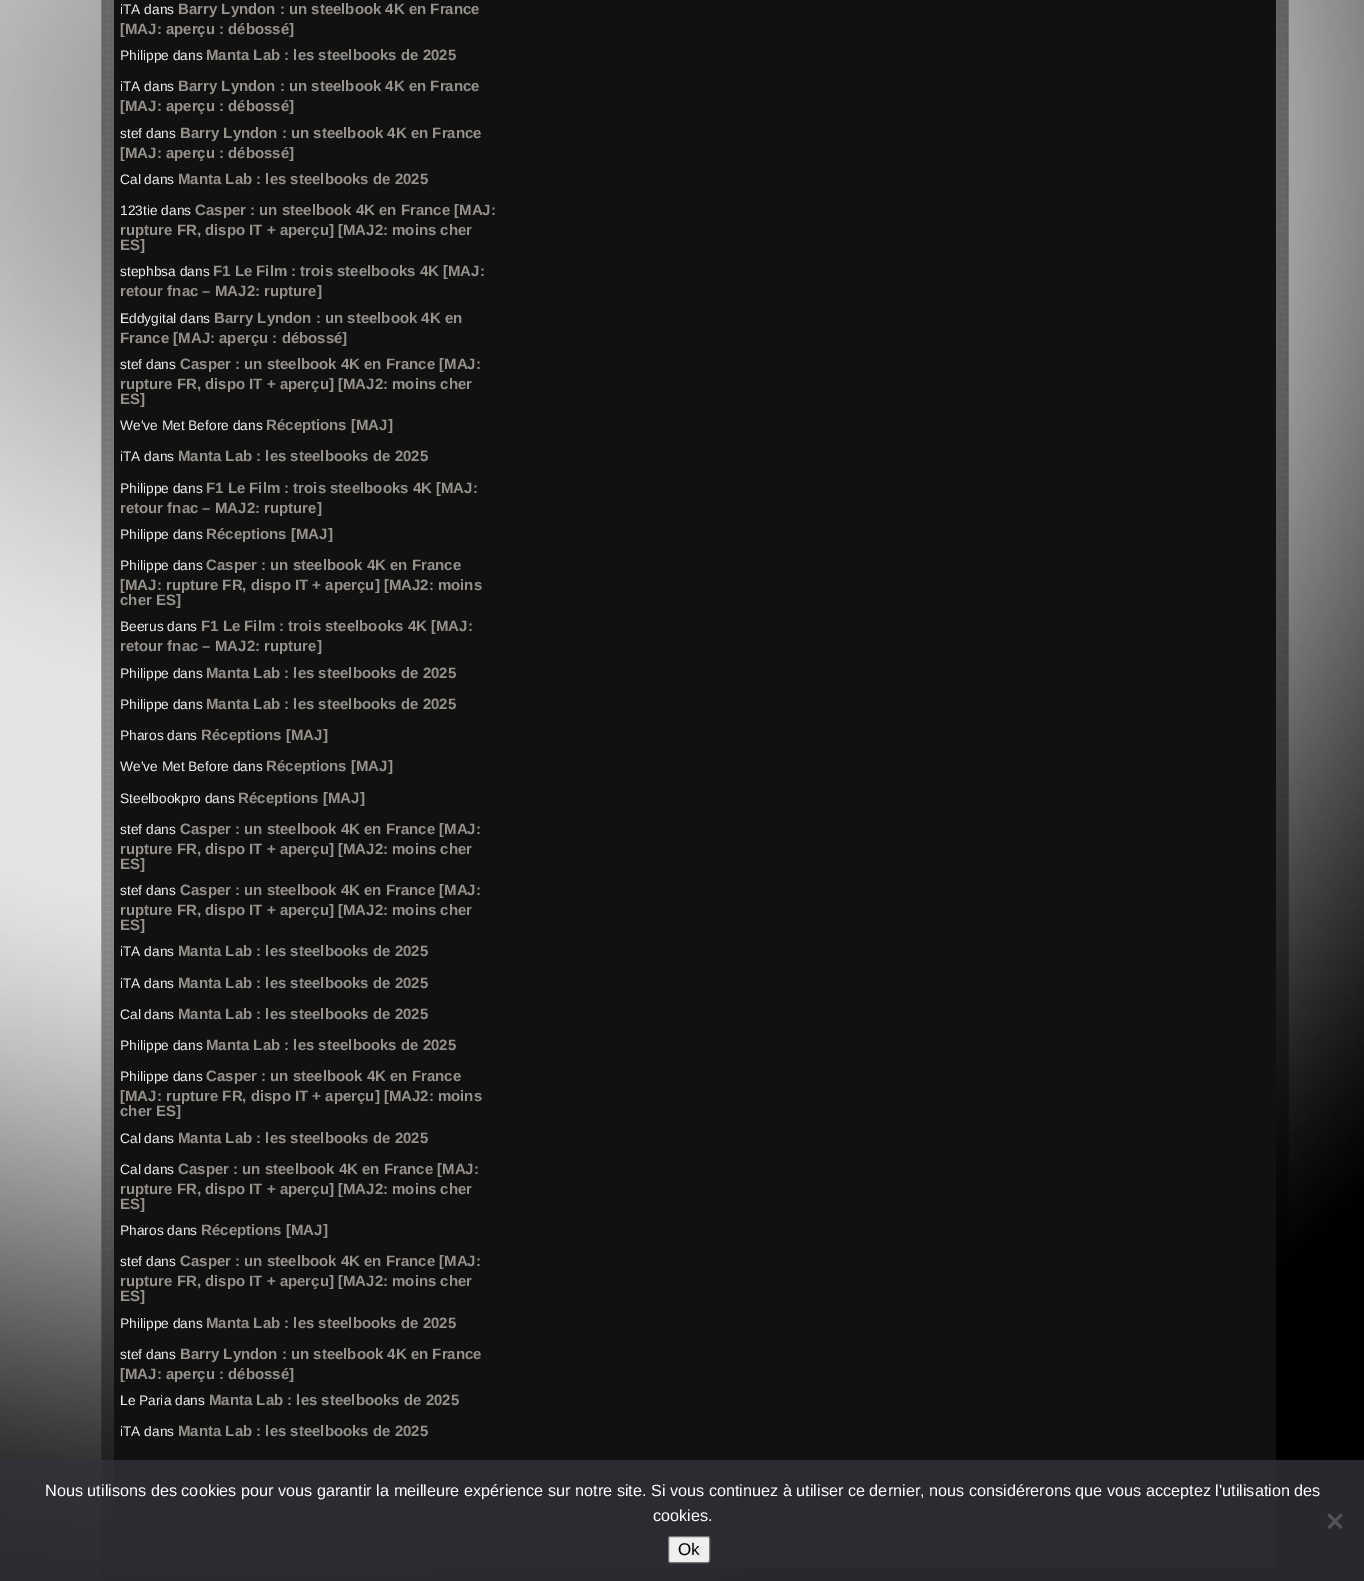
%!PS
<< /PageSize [1364 1581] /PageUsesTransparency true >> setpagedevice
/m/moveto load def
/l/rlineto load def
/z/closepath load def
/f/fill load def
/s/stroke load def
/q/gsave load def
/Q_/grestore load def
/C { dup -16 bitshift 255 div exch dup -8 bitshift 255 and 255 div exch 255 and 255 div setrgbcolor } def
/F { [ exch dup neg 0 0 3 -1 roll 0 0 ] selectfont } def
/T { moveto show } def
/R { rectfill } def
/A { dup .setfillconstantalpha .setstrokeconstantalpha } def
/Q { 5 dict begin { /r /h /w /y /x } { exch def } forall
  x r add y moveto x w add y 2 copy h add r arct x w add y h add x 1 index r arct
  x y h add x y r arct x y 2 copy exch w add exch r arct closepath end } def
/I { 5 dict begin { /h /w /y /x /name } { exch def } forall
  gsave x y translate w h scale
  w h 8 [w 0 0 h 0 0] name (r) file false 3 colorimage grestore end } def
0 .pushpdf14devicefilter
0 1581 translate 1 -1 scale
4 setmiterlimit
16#FFFFFF C
0 0 1364 1581 R
(1.rgb) 0 0 1364 1581 I
(2.rgb) 101 0 1188 1581 I
16#111111 C
114 0 1162 1568 R
/LiberationSans-Regular 13.75 F
16#EFEFEF C
(iTA dans) 120 14 T
/LiberationSans-Bold 15 F
16#96918B C
(Barry Lyndon : un steelbook 4K en France) 178 14 T
([MAJ: aperçu : débossé]) 120 34 T
/LiberationSans-Regular 13.75 F
16#EFEFEF C
(Philippe dans) 120 60 T
/LiberationSans-Bold 15 F
16#96918B C
(Manta Lab : les steelbooks de 2025) 206 60 T
/LiberationSans-Regular 13.75 F
16#EFEFEF C
(iTA dans) 120 91 T
/LiberationSans-Bold 15 F
16#96918B C
(Barry Lyndon : un steelbook 4K en France) 178 91 T
([MAJ: aperçu : débossé]) 120 111 T
/LiberationSans-Regular 13.75 F
16#EFEFEF C
(stef dans) 120 138 T
/LiberationSans-Bold 15 F
16#96918B C
(Barry Lyndon : un steelbook 4K en France) 180 138 T
([MAJ: aperçu : débossé]) 120 158 T
/LiberationSans-Regular 13.75 F
16#EFEFEF C
(Cal dans) 120 184 T
/LiberationSans-Bold 15 F
16#96918B C
(Manta Lab : les steelbooks de 2025) 178 184 T
/LiberationSans-Regular 13.75 F
16#EFEFEF C
(123tie dans) 120 215 T
/LiberationSans-Bold 15 F
16#96918B C
(Casper : un steelbook 4K en France [MAJ:) 195 215 T
(rupture FR, dispo IT + aperçu] [MAJ2: moins cher) 120 235 T
(ES]) 120 250 T
/LiberationSans-Regular 13.75 F
16#EFEFEF C
(stephbsa dans) 120 276 T
/LiberationSans-Bold 15 F
16#96918B C
(F1 Le Film : trois steelbooks 4K [MAJ:) 213 276 T
(retour fnac – MAJ2: rupture]) 120 296 T
/LiberationSans-Regular 13.75 F
16#EFEFEF C
(Eddygital dans) 120 323 T
/LiberationSans-Bold 15 F
16#96918B C
(Barry Lyndon : un steelbook 4K en) 214 323 T
(France [MAJ: aperçu : débossé]) 120 343 T
/LiberationSans-Regular 13.75 F
16#EFEFEF C
(stef dans) 120 369 T
/LiberationSans-Bold 15 F
16#96918B C
(Casper : un steelbook 4K en France [MAJ:) 180 369 T
(rupture FR, dispo IT + aperçu] [MAJ2: moins cher) 120 389 T
(ES]) 120 404 T
/LiberationSans-Regular 13.75 F
16#EFEFEF C
(We've Met Before dans) 120 430 T
/LiberationSans-Bold 15 F
16#96918B C
(Réceptions [MAJ]) 266 430 T
/LiberationSans-Regular 13.75 F
16#EFEFEF C
(iTA dans) 120 461 T
/LiberationSans-Bold 15 F
16#96918B C
(Manta Lab : les steelbooks de 2025) 178 461 T
/LiberationSans-Regular 13.75 F
16#EFEFEF C
(Philippe dans) 120 493 T
/LiberationSans-Bold 15 F
16#96918B C
(F1 Le Film : trois steelbooks 4K [MAJ:) 206 493 T
(retour fnac – MAJ2: rupture]) 120 513 T
/LiberationSans-Regular 13.75 F
16#EFEFEF C
(Philippe dans) 120 539 T
/LiberationSans-Bold 15 F
16#96918B C
(Réceptions [MAJ]) 206 539 T
/LiberationSans-Regular 13.75 F
16#EFEFEF C
(Philippe dans) 120 570 T
/LiberationSans-Bold 15 F
16#96918B C
(Casper : un steelbook 4K en France) 206 570 T
([MAJ: rupture FR, dispo IT + aperçu] [MAJ2: moins) 120 590 T
(cher ES]) 120 605 T
/LiberationSans-Regular 13.75 F
16#EFEFEF C
(Beerus dans) 120 631 T
/LiberationSans-Bold 15 F
16#96918B C
(F1 Le Film : trois steelbooks 4K [MAJ:) 201 631 T
(retour fnac – MAJ2: rupture]) 120 651 T
/LiberationSans-Regular 13.75 F
16#EFEFEF C
(Philippe dans) 120 678 T
/LiberationSans-Bold 15 F
16#96918B C
(Manta Lab : les steelbooks de 2025) 206 678 T
/LiberationSans-Regular 13.75 F
16#EFEFEF C
(Philippe dans) 120 709 T
/LiberationSans-Bold 15 F
16#96918B C
(Manta Lab : les steelbooks de 2025) 206 709 T
/LiberationSans-Regular 13.75 F
16#EFEFEF C
(Pharos dans) 120 740 T
/LiberationSans-Bold 15 F
16#96918B C
(Réceptions [MAJ]) 201 740 T
/LiberationSans-Regular 13.75 F
16#EFEFEF C
(We've Met Before dans) 120 771 T
/LiberationSans-Bold 15 F
16#96918B C
(Réceptions [MAJ]) 266 771 T
/LiberationSans-Regular 13.75 F
16#EFEFEF C
(Steelbookpro dans) 120 803 T
/LiberationSans-Bold 15 F
16#96918B C
(Réceptions [MAJ]) 238 803 T
/LiberationSans-Regular 13.75 F
16#EFEFEF C
(stef dans) 120 834 T
/LiberationSans-Bold 15 F
16#96918B C
(Casper : un steelbook 4K en France [MAJ:) 180 834 T
(rupture FR, dispo IT + aperçu] [MAJ2: moins cher) 120 854 T
(ES]) 120 869 T
/LiberationSans-Regular 13.75 F
16#EFEFEF C
(stef dans) 120 895 T
/LiberationSans-Bold 15 F
16#96918B C
(Casper : un steelbook 4K en France [MAJ:) 180 895 T
(rupture FR, dispo IT + aperçu] [MAJ2: moins cher) 120 915 T
(ES]) 120 930 T
/LiberationSans-Regular 13.75 F
16#EFEFEF C
(iTA dans) 120 956 T
/LiberationSans-Bold 15 F
16#96918B C
(Manta Lab : les steelbooks de 2025) 178 956 T
/LiberationSans-Regular 13.75 F
16#EFEFEF C
(iTA dans) 120 988 T
/LiberationSans-Bold 15 F
16#96918B C
(Manta Lab : les steelbooks de 2025) 178 988 T
/LiberationSans-Regular 13.75 F
16#EFEFEF C
(Cal dans) 120 1019 T
/LiberationSans-Bold 15 F
16#96918B C
(Manta Lab : les steelbooks de 2025) 178 1019 T
/LiberationSans-Regular 13.75 F
16#EFEFEF C
(Philippe dans) 120 1050 T
/LiberationSans-Bold 15 F
16#96918B C
(Manta Lab : les steelbooks de 2025) 206 1050 T
/LiberationSans-Regular 13.75 F
16#EFEFEF C
(Philippe dans) 120 1081 T
/LiberationSans-Bold 15 F
16#96918B C
(Casper : un steelbook 4K en France) 206 1081 T
([MAJ: rupture FR, dispo IT + aperçu] [MAJ2: moins) 120 1101 T
(cher ES]) 120 1116 T
/LiberationSans-Regular 13.75 F
16#EFEFEF C
(Cal dans) 120 1143 T
/LiberationSans-Bold 15 F
16#96918B C
(Manta Lab : les steelbooks de 2025) 178 1143 T
/LiberationSans-Regular 13.75 F
16#EFEFEF C
(Cal dans) 120 1174 T
/LiberationSans-Bold 15 F
16#96918B C
(Casper : un steelbook 4K en France [MAJ:) 178 1174 T
(rupture FR, dispo IT + aperçu] [MAJ2: moins cher) 120 1194 T
(ES]) 120 1209 T
/LiberationSans-Regular 13.75 F
16#EFEFEF C
(Pharos dans) 120 1235 T
/LiberationSans-Bold 15 F
16#96918B C
(Réceptions [MAJ]) 201 1235 T
/LiberationSans-Regular 13.75 F
16#EFEFEF C
(stef dans) 120 1266 T
/LiberationSans-Bold 15 F
16#96918B C
(Casper : un steelbook 4K en France [MAJ:) 180 1266 T
(rupture FR, dispo IT + aperçu] [MAJ2: moins cher) 120 1286 T
(ES]) 120 1301 T
/LiberationSans-Regular 13.75 F
16#EFEFEF C
(Philippe dans) 120 1328 T
/LiberationSans-Bold 15 F
16#96918B C
(Manta Lab : les steelbooks de 2025) 206 1328 T
/LiberationSans-Regular 13.75 F
16#EFEFEF C
(stef dans) 120 1359 T
/LiberationSans-Bold 15 F
16#96918B C
(Barry Lyndon : un steelbook 4K en France) 180 1359 T
([MAJ: aperçu : débossé]) 120 1379 T
/LiberationSans-Regular 13.75 F
16#EFEFEF C
(Le Paria dans) 120 1405 T
/LiberationSans-Bold 15 F
16#96918B C
(Manta Lab : les steelbooks de 2025) 209 1405 T
/LiberationSans-Regular 13.75 F
16#EFEFEF C
(iTA dans) 120 1436 T
/LiberationSans-Bold 15 F
16#96918B C
(Manta Lab : les steelbooks de 2025) 178 1436 T
0.8 A
16#32323A C
0 1460 1364 121 R
/LiberationSans-Regular 16.25 F
1 A
16#FFFFFF C
(Nous utilisons des cookies pour vous garantir la meilleure expérience sur notre site. Si vous continuez à utiliser ce dernier, nous considérerons que vous acceptez l'utilisation des) 45 1496 T
(cookies.) 653 1521 T
16#545457 C
1340.5 1513.5 m 2 2 l -13 13.5 l -2 -2 l z f
1327.5 1515.5 m 2 -2 l 13 13.5 l -2 2 l z f
16#EFEFEF C
668.5 1536.5 41 26 2 Q q f Q_
16#767676 C
s
/LiberationSans-Regular 17 F
16#000000 C
(Ok) 678 1555 T
.poppdf14devicefilter showpage
